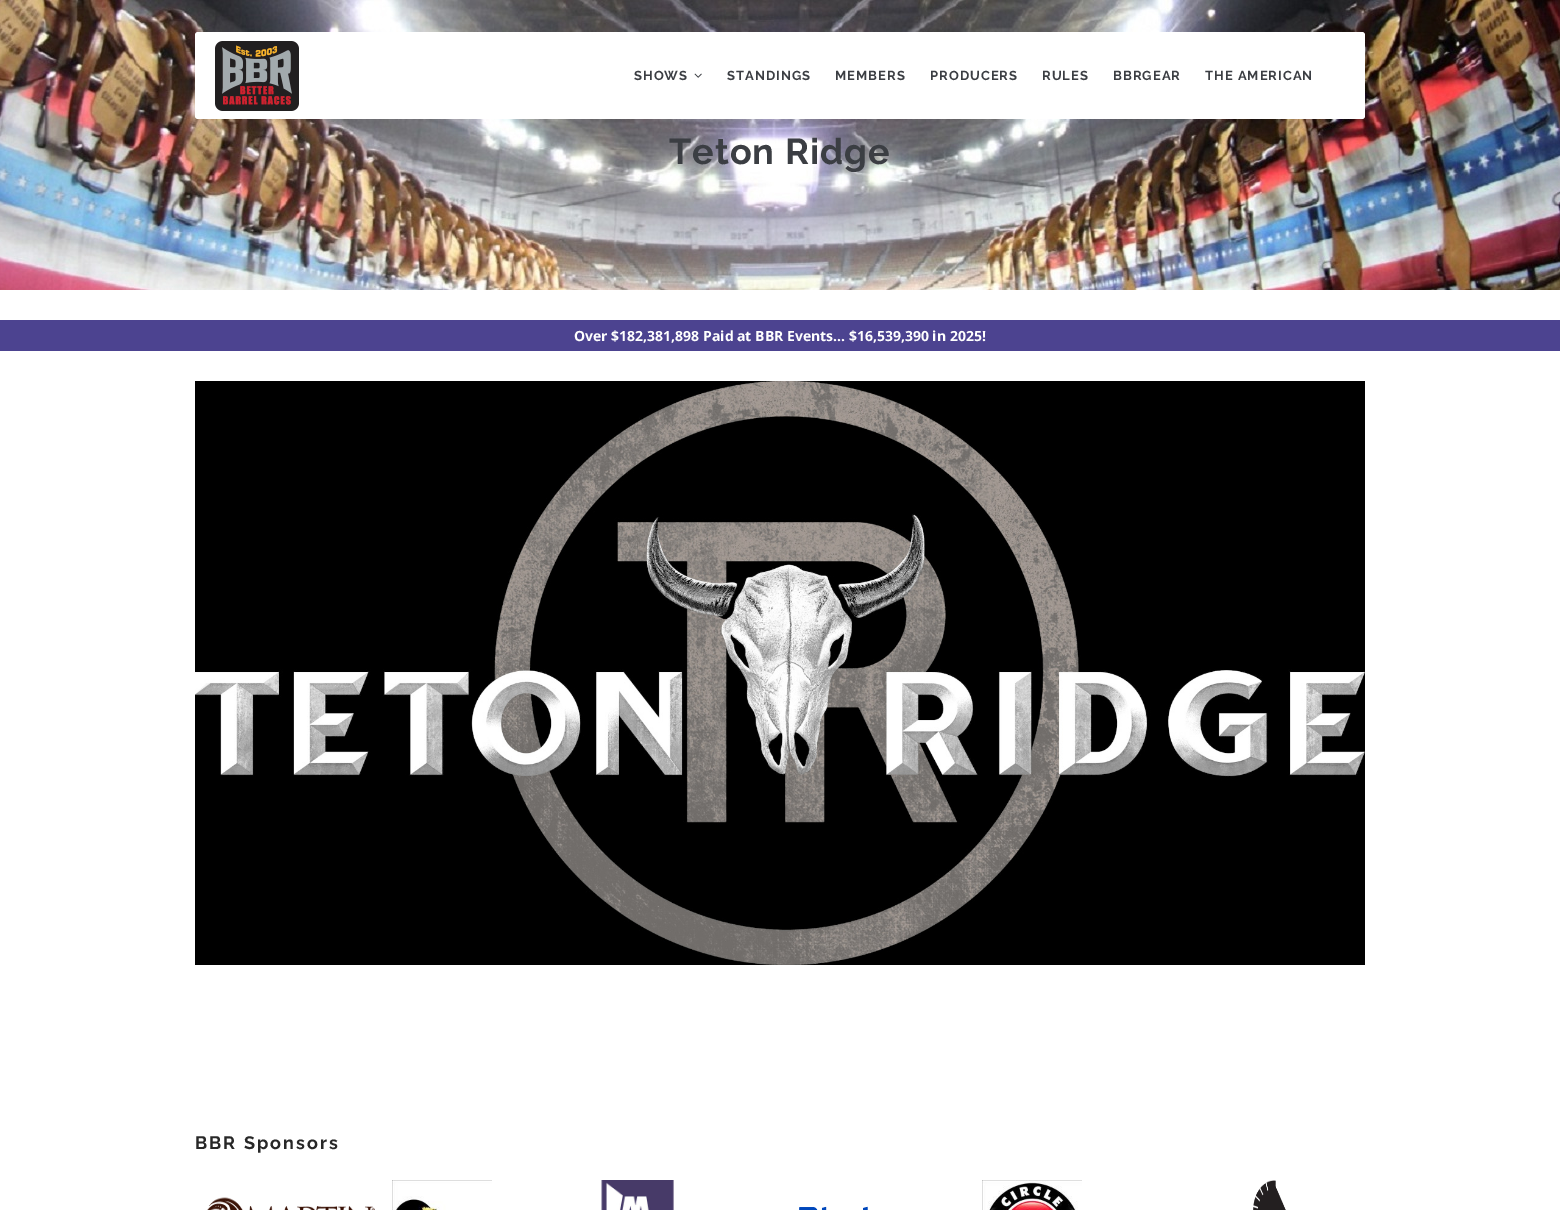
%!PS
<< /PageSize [1560 1210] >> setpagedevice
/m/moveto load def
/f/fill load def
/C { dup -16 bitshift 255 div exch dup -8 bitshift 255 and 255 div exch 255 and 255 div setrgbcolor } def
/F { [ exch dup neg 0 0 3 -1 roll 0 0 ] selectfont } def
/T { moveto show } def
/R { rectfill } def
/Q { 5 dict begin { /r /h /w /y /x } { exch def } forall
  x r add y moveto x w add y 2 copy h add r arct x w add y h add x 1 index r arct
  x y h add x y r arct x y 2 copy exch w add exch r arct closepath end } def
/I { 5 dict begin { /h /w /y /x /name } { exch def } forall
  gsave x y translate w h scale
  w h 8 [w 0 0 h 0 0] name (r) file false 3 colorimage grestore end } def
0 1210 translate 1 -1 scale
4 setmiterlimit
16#FFFFFF C
0 0 1560 1210 R
(3.rgb) 0 0 1560 290 I
195 32 1170 87 3 Q f
(1.rgb) 215 41 84 70 I
/Raleway-Bold 13 F
16#3B3E43 C
634 80 m 1 0 (SHOWS) ashow
(2.rgb) 694 73 8 5 I
727 80 m 1 0 (STANDINGS) ashow
835 80 m 1 0 (MEMBERS) ashow
930 80 m 1 0 (PRODUCERS) ashow
1042 80 m 1 0 (RULES) ashow
1113 80 m 1 0 (BBRGEAR) ashow
1205 80 m 1 0 (THE AMERICAN) ashow
/Raleway-Bold 36 F
669 164 m 1 0 (Teton Ridge) ashow
16#4C4390 C
0 320 1560 31 R
/OpenSans-Bold 14 F
16#FFFFFF C
(Over $182,381,898 Paid at BBR Events... $16,539,390 in 2025!) 574 341 T
(4.rgb) 195 381 1170 584 I
/Raleway-Bold 18 F
16#282828 C
195 1149 m 2 0 (BBR Sponsors) ashow
(5.rgb) 207 1197 168 13 I
(6.rgb) 392 1180 100 30 I
(7.rgb) 601 1180 73 30 I
(8.rgb) 799 1206 69 4 I
(9.rgb) 982 1180 100 30 I
(10.rgb) 1253 1180 33 30 I
showpage
